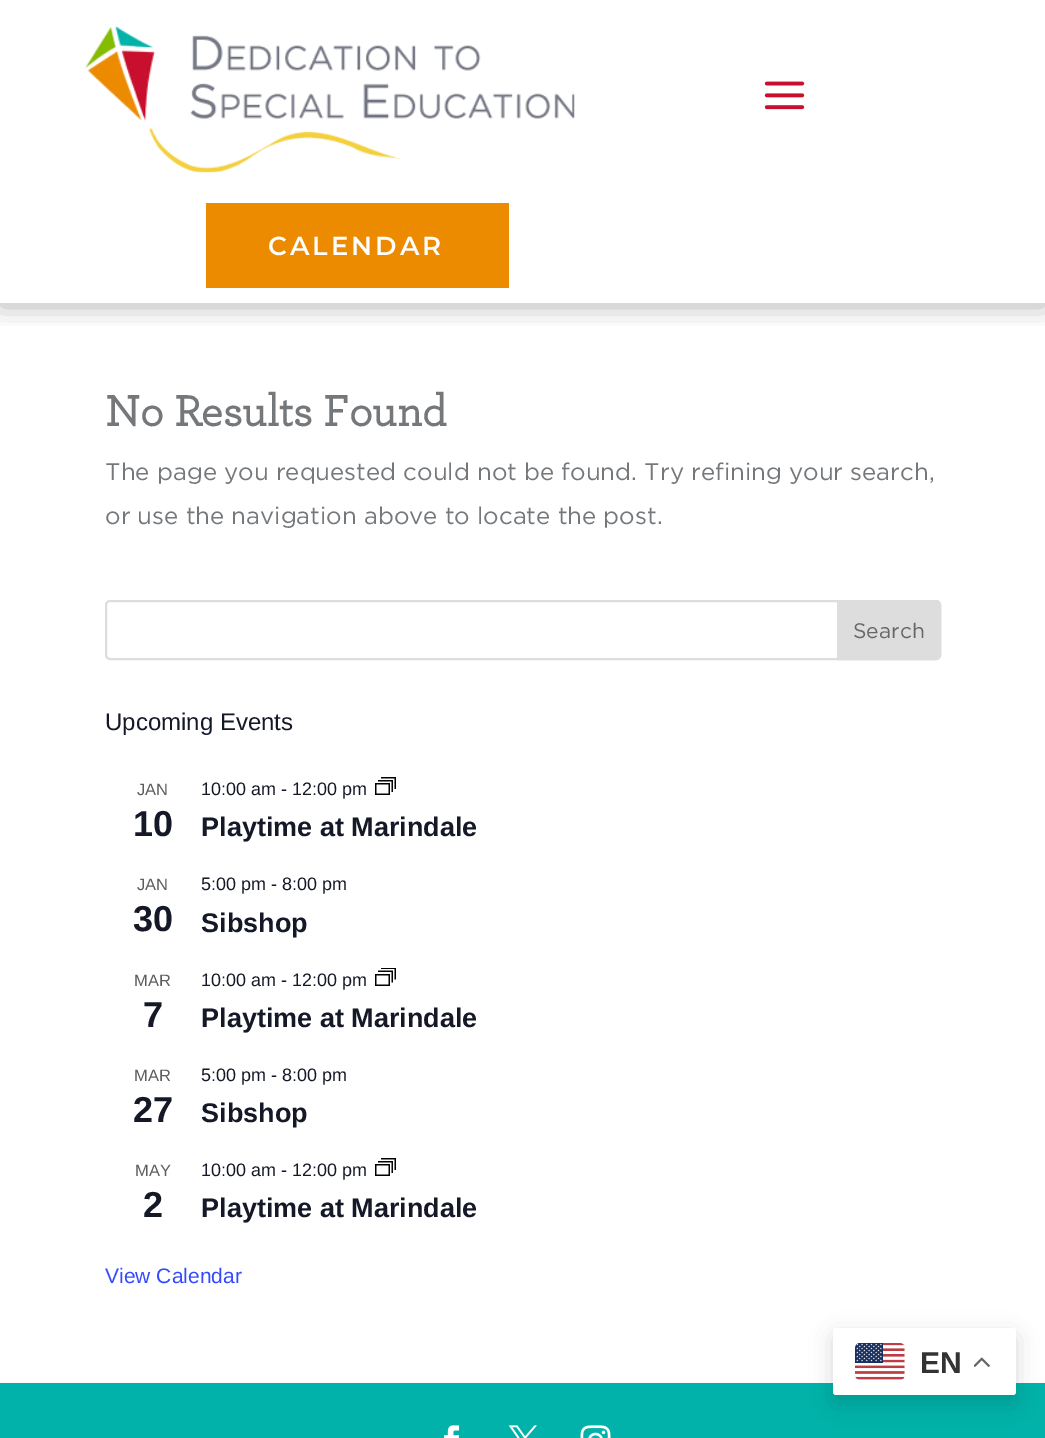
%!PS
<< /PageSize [1045 1438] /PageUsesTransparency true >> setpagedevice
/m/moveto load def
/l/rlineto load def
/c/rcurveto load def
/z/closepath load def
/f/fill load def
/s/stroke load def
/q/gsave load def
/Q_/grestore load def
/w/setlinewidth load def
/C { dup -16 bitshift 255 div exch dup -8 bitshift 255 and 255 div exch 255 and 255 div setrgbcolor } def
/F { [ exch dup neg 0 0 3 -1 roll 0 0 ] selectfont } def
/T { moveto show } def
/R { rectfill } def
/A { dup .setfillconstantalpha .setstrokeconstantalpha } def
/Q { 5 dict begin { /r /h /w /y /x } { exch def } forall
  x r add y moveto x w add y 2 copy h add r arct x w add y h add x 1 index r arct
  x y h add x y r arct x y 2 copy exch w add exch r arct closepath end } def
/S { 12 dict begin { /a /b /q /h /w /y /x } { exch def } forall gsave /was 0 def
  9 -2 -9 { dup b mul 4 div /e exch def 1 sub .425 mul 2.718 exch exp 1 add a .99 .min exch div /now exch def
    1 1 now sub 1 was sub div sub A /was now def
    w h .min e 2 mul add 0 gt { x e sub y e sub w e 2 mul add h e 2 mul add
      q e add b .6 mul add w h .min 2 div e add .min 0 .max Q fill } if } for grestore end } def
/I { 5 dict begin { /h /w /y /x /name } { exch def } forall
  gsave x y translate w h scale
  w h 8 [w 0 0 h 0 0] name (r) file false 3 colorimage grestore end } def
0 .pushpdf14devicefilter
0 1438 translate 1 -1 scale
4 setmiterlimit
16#FFFFFF C
0 0 1045 1438 R
q
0 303 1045 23 rectclip
16#000000 C
0 3 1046 303 0 13.5 .3 S
Q_
(1.rgb) 85 26 490 147 I
(2.rgb) 764 81 41 29 I
16#ED8B00 C
206 203 303 85 R
/Montserrat-SemiBold 26 F
16#FFFFFF C
268 255 m 3 0 (CALENDAR) ashow
/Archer-Bold 45 F
16#75787B C
(No Results Found) 105 426 T
/Gotham-Regular 24 F
(The page you requested could not be found. Try refining your search,) 105 480 T
(or use the navigation above to locate the post.) 105 524 T
16#DDDDDD C
2 w
106 601 834 58 4 Q s
838 601 m 98 0 l 2 0 4 2 4 4 c 0 50 l 0 2 -2 4 -4 4 c -98 0 l z q f Q_
s
/Gotham-Regular 21 F
16#666666 C
(Search) 853 638 T
/LiberationSans-Regular 24 F
16#141827 C
(Upcoming Events) 105 730 T
/LiberationSans-Regular 16.5 F
16#5D5D5D C
(JAN) 137 795 T
/LiberationSans-Bold 36 F
16#141827 C
(10) 133 836 T
/LiberationSans-Regular 18 F
(10:00 am - 12:00 pm) 201 795 T
(3.rgb) 375 777 21 18 I
/LiberationSans-Bold 27 F
(Playtime at Marindale) 201 836 T
/LiberationSans-Regular 16.5 F
16#5D5D5D C
(JAN) 137 890 T
/LiberationSans-Bold 36 F
16#141827 C
(30) 133 931 T
/LiberationSans-Regular 18 F
(5:00 pm - 8:00 pm) 201 890 T
/LiberationSans-Bold 27 F
(Sibshop) 201 932 T
/LiberationSans-Regular 16.5 F
16#5D5D5D C
(MAR) 134 986 T
/LiberationSans-Bold 36 F
16#141827 C
(7) 143 1027 T
/LiberationSans-Regular 18 F
(10:00 am - 12:00 pm) 201 986 T
(4.rgb) 375 968 21 18 I
/LiberationSans-Bold 27 F
(Playtime at Marindale) 201 1027 T
/LiberationSans-Regular 16.5 F
16#5D5D5D C
(MAR) 134 1081 T
/LiberationSans-Bold 36 F
16#141827 C
(27) 133 1122 T
/LiberationSans-Regular 18 F
(5:00 pm - 8:00 pm) 201 1081 T
/LiberationSans-Bold 27 F
(Sibshop) 201 1122 T
/LiberationSans-Regular 16.5 F
16#5D5D5D C
(MAY) 135 1176 T
/LiberationSans-Bold 36 F
16#141827 C
(2) 143 1217 T
/LiberationSans-Regular 18 F
(10:00 am - 12:00 pm) 201 1176 T
(3.rgb) 375 1158 21 18 I
/LiberationSans-Bold 27 F
(Playtime at Marindale) 201 1217 T
/LiberationSans-Regular 21 F
16#334AFF C
(View Calendar) 105 1283 T
16#00B2A9 C
0 1383 1045 55 R
(5.rgb) 444 1425 16 13 I
(6.rgb) 508 1425 29 13 I
(7.rgb) 580 1425 31 13 I
16#000000 C
833 1335 183 68 3 11 .15 S
16#FFFFFF C
833 1328 183 67 3 Q f
(8.rgb) 855 1343 50 37 I
/LiberationSans-Bold 30 F
16#333333 C
(EN) 920 1373 T
(9.rgb) 974 1357 16 10 I
.poppdf14devicefilter showpage
